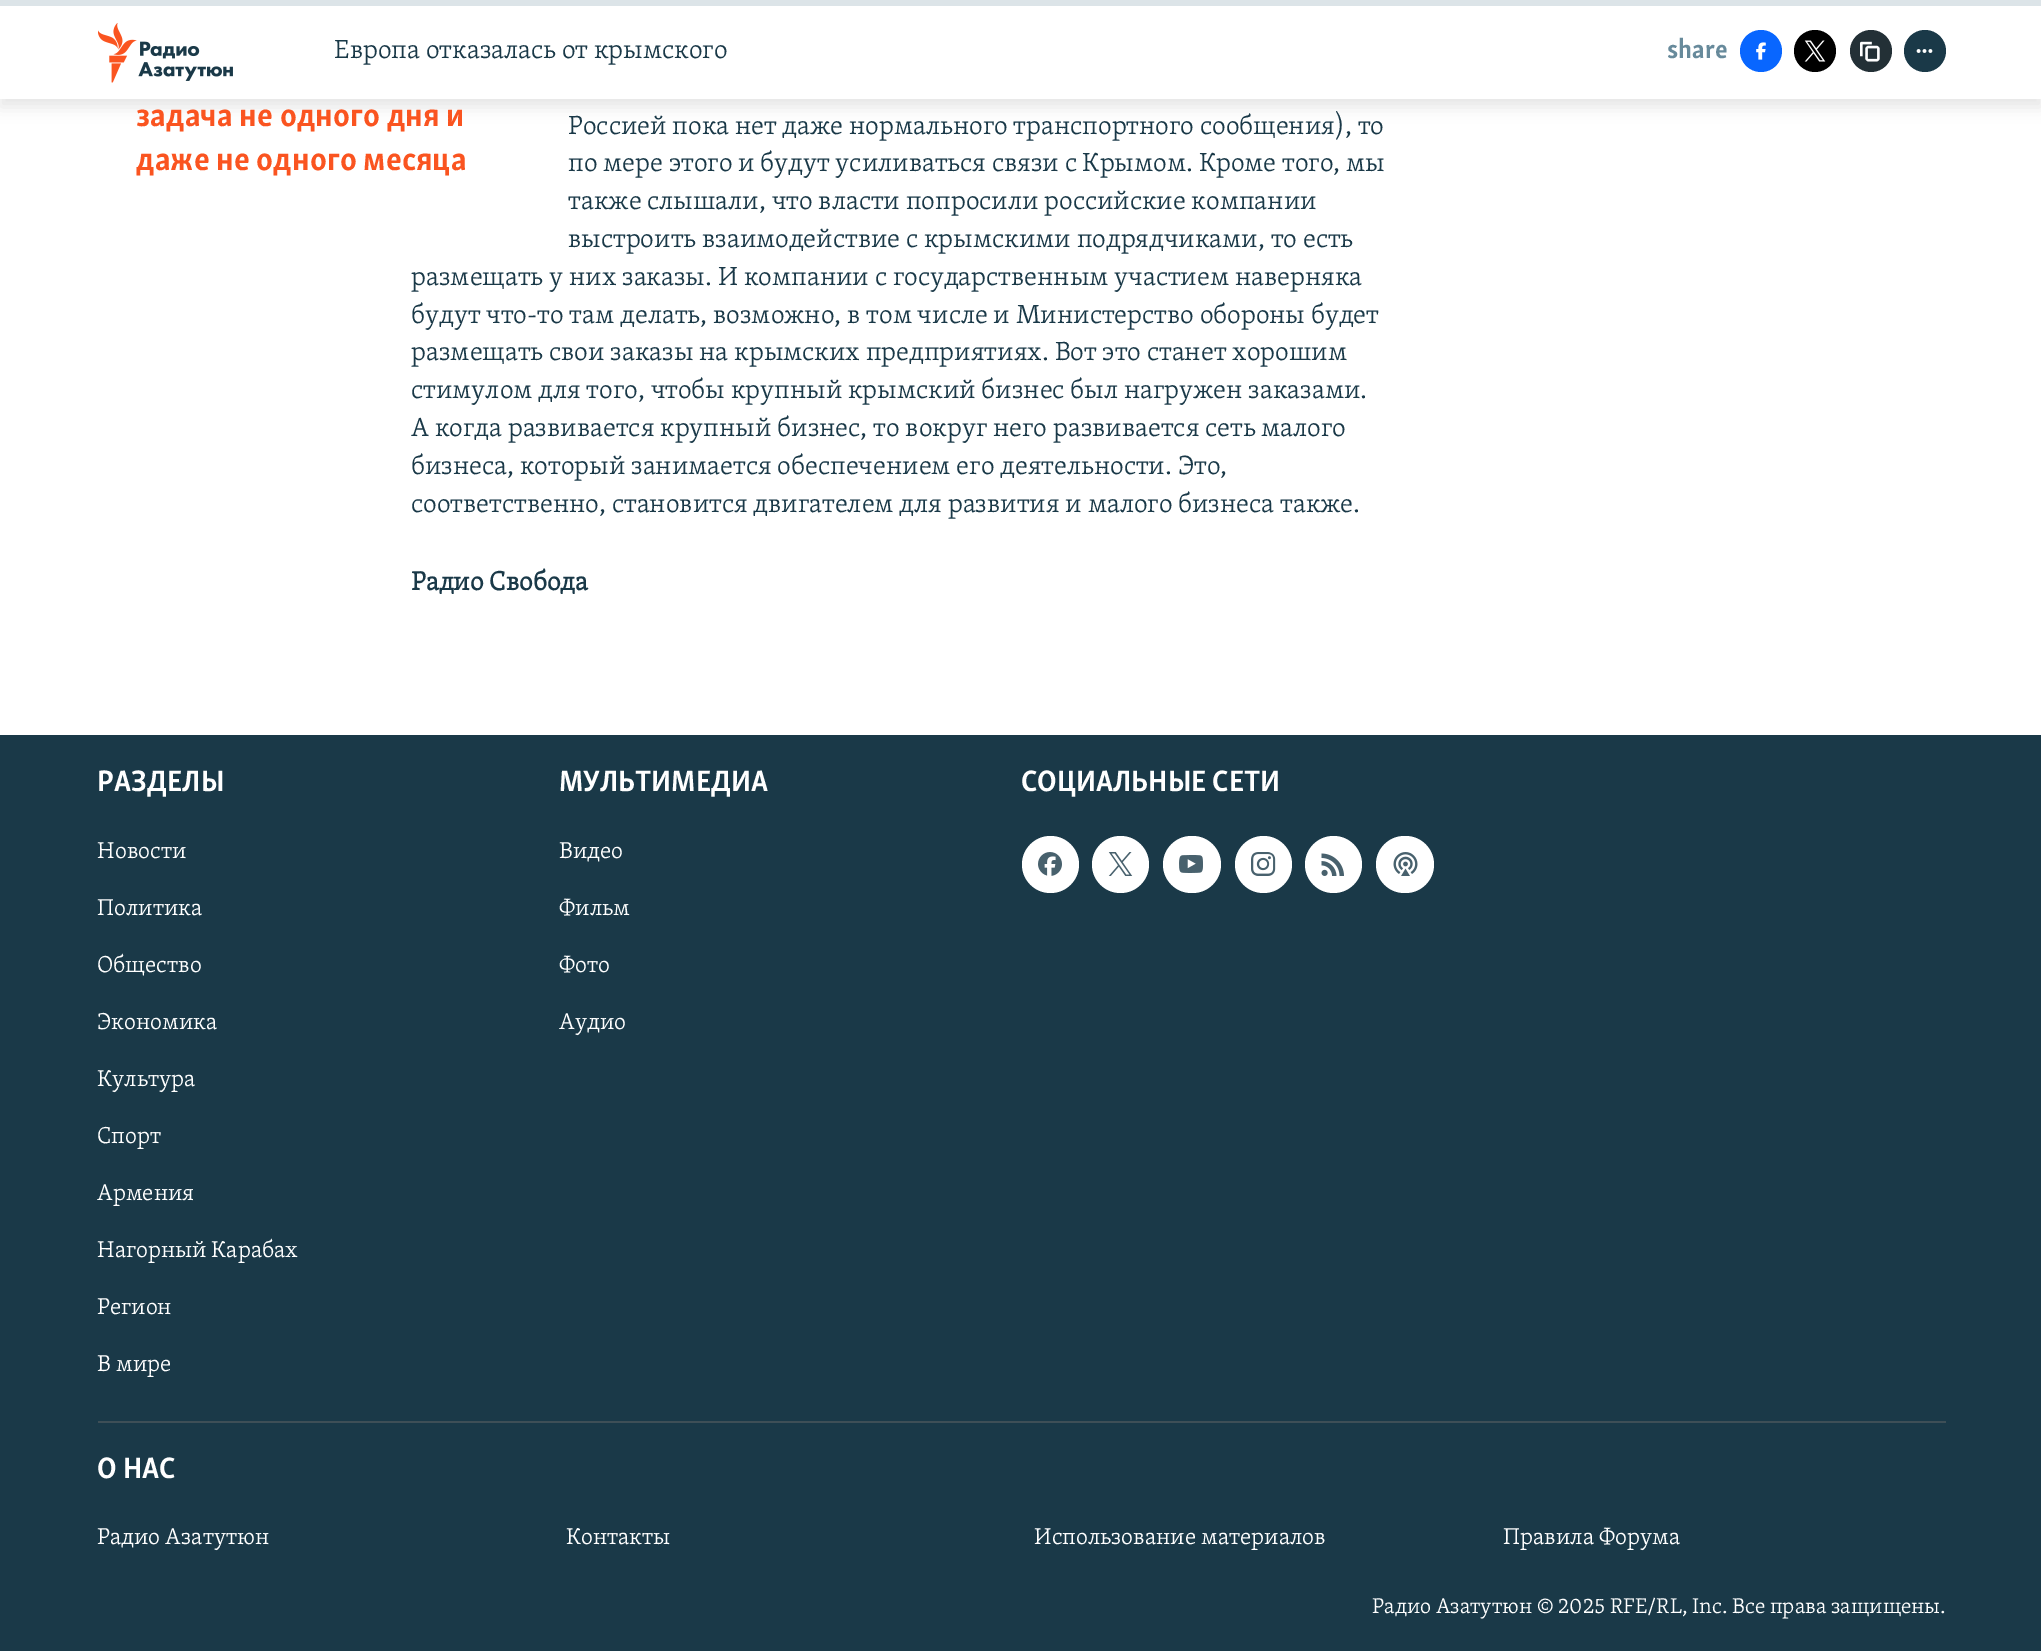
%!PS
<< /PageSize [2041 1651] /PageUsesTransparency true >> setpagedevice
/f/fill load def
/C { dup -16 bitshift 255 div exch dup -8 bitshift 255 and 255 div exch 255 and 255 div setrgbcolor } def
/F { [ exch dup neg 0 0 3 -1 roll 0 0 ] selectfont } def
/T { moveto show } def
/R { rectfill } def
/A { dup .setfillconstantalpha .setstrokeconstantalpha } def
/O { newpath 0 360 arc closepath } def
/Q { 5 dict begin { /r /h /w /y /x } { exch def } forall
  x r add y moveto x w add y 2 copy h add r arct x w add y h add x 1 index r arct
  x y h add x y r arct x y 2 copy exch w add exch r arct closepath end } def
/S { 12 dict begin { /a /b /q /h /w /y /x } { exch def } forall gsave /was 0 def
  9 -2 -9 { dup b mul 4 div /e exch def 1 sub .425 mul 2.718 exch exp 1 add a .99 .min exch div /now exch def
    1 1 now sub 1 was sub div sub A /was now def
    w h .min e 2 mul add 0 gt { x e sub y e sub w e 2 mul add h e 2 mul add
      q e add b .6 mul add w h .min 2 div e add .min 0 .max Q fill } if } for grestore end } def
/I { 5 dict begin { /h /w /y /x /name } { exch def } forall
  gsave x y translate w h scale
  w h 8 [w 0 0 h 0 0] name (r) file false 3 colorimage grestore end } def
0 .pushpdf14devicefilter
0 1651 translate 1 -1 scale
4 setmiterlimit
16#FFFFFF C
0 0 2041 1651 R
16#000000 C
0 8 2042 99 0 7.5 .1 S
16#FFFFFF C
0 6 2041 93 R
16#DCE4E8 C
0 0 2041 6 R
(1.rgb) 98 23 135 60 I
/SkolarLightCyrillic-Light 27 F
16#1A3948 C
(Европа отказалась от крымского) 334 58 T
/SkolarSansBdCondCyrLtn-Bold 27 F
16#678A9B C
(share) 1667 58 T
16#0866FF C
1761 51 21 O f
(2.rgb) 1756 42 10 18 I
16#000000 C
1815 51 21 O f
(3.rgb) 1804 40 22 22 I
16#233036 C
1871 51 21 O f
(4.rgb) 1860 41 20 21 I
16#1A3948 C
1925 51 21 O f
(5.rgb) 1916 49 17 4 I
/SkolarSansBdCondCyrLtn-Bold 33.75 F
16#FA5420 C
(задача не одного дня и) 136 126 T
(даже не одного месяца) 136 170 T
/SkolarLightCyrillic-Light 27 F
16#1A3948 C
(Россией пока нет даже нормального транспортного сообщения\), то) 568 134 T
(по мере этого и будут усиливаться связи с Крымом. Кроме того, мы) 568 171 T
(также слышали, что власти попросили российские компании) 568 209 T
(выстроить взаимодействие с крымскими подрядчиками, то есть) 568 247 T
(размещать у них заказы. И компании с государственным участием наверняка) 411 285 T
(будут что-то там делать, возможно, в том числе и Министерство обороны будет) 411 323 T
(размещать свои заказы на крымских предприятиях. Вот это станет хорошим) 411 360 T
(стимулом для того, чтобы крупный крымский бизнес был нагружен заказами.) 411 398 T
(А когда развивается крупный бизнес, то вокруг него развивается сеть малого) 411 436 T
(бизнеса, который занимается обеспечением его деятельности. Это,) 411 474 T
(соответственно, становится двигателем для развития и малого бизнеса также.) 411 512 T
/SkolarLightCyrillic-Bold 27 F
(Радио Свобода) 411 590 T
0 735 2041 916 R
/SkolarSansBdCondCyrLtn-Bold 30.4 F
16#FFFFFF C
(РАЗДЕЛЫ) 97 791 T
/SkolarLightCyrillic-Light 23.6 F
(Новости) 97 858 T
(Политика) 97 915 T
(Общество) 97 972 T
(Экономика) 97 1029 T
(Культура) 97 1086 T
(Спорт) 97 1143 T
(Армения) 97 1200 T
(Нагорный Карабах) 97 1257 T
(Регион) 97 1314 T
(В мире) 97 1371 T
/SkolarSansBdCondCyrLtn-Bold 30.4 F
(МУЛЬТИМЕДИА) 559 791 T
/SkolarLightCyrillic-Light 23.6 F
(Видео) 559 858 T
(Фильм) 559 915 T
(Фото) 559 972 T
(Аудио) 559 1029 T
/SkolarSansBdCondCyrLtn-Bold 30.4 F
(СОЦИАЛЬНЫЕ СЕТИ) 1021 791 T
1050.5 864.5 28.5 O f
(6.rgb) 1038 852 24 24 I
1120.5 864.5 28.5 O f
(7.rgb) 1108 852 25 24 I
1163 836 58 57 28.5 Q f
(8.rgb) 1179 855 24 18 I
1263.5 864.5 28.5 O f
(9.rgb) 1251 852 25 24 I
1333.5 864.5 28.5 O f
(10.rgb) 1321 853 23 23 I
1376 836 58 57 28.5 Q f
(11.rgb) 1393 852 25 24 I
16#3E4F57 C
98 1421 1848 2 R
16#FFFFFF C
(О НАС) 97 1478 T
/SkolarLightCyrillic-Light 23.6 F
(Радио Азатутюн) 97 1544 T
(Контакты) 566 1544 T
(Использование материалов) 1034 1544 T
(Правила Форума) 1503 1544 T
/SkolarLightCyrillic-Light 21.95 F
(Радио Азатутюн © 2025 RFE/RL, Inc. Все права защищены.) 1372 1613 T
.poppdf14devicefilter showpage
